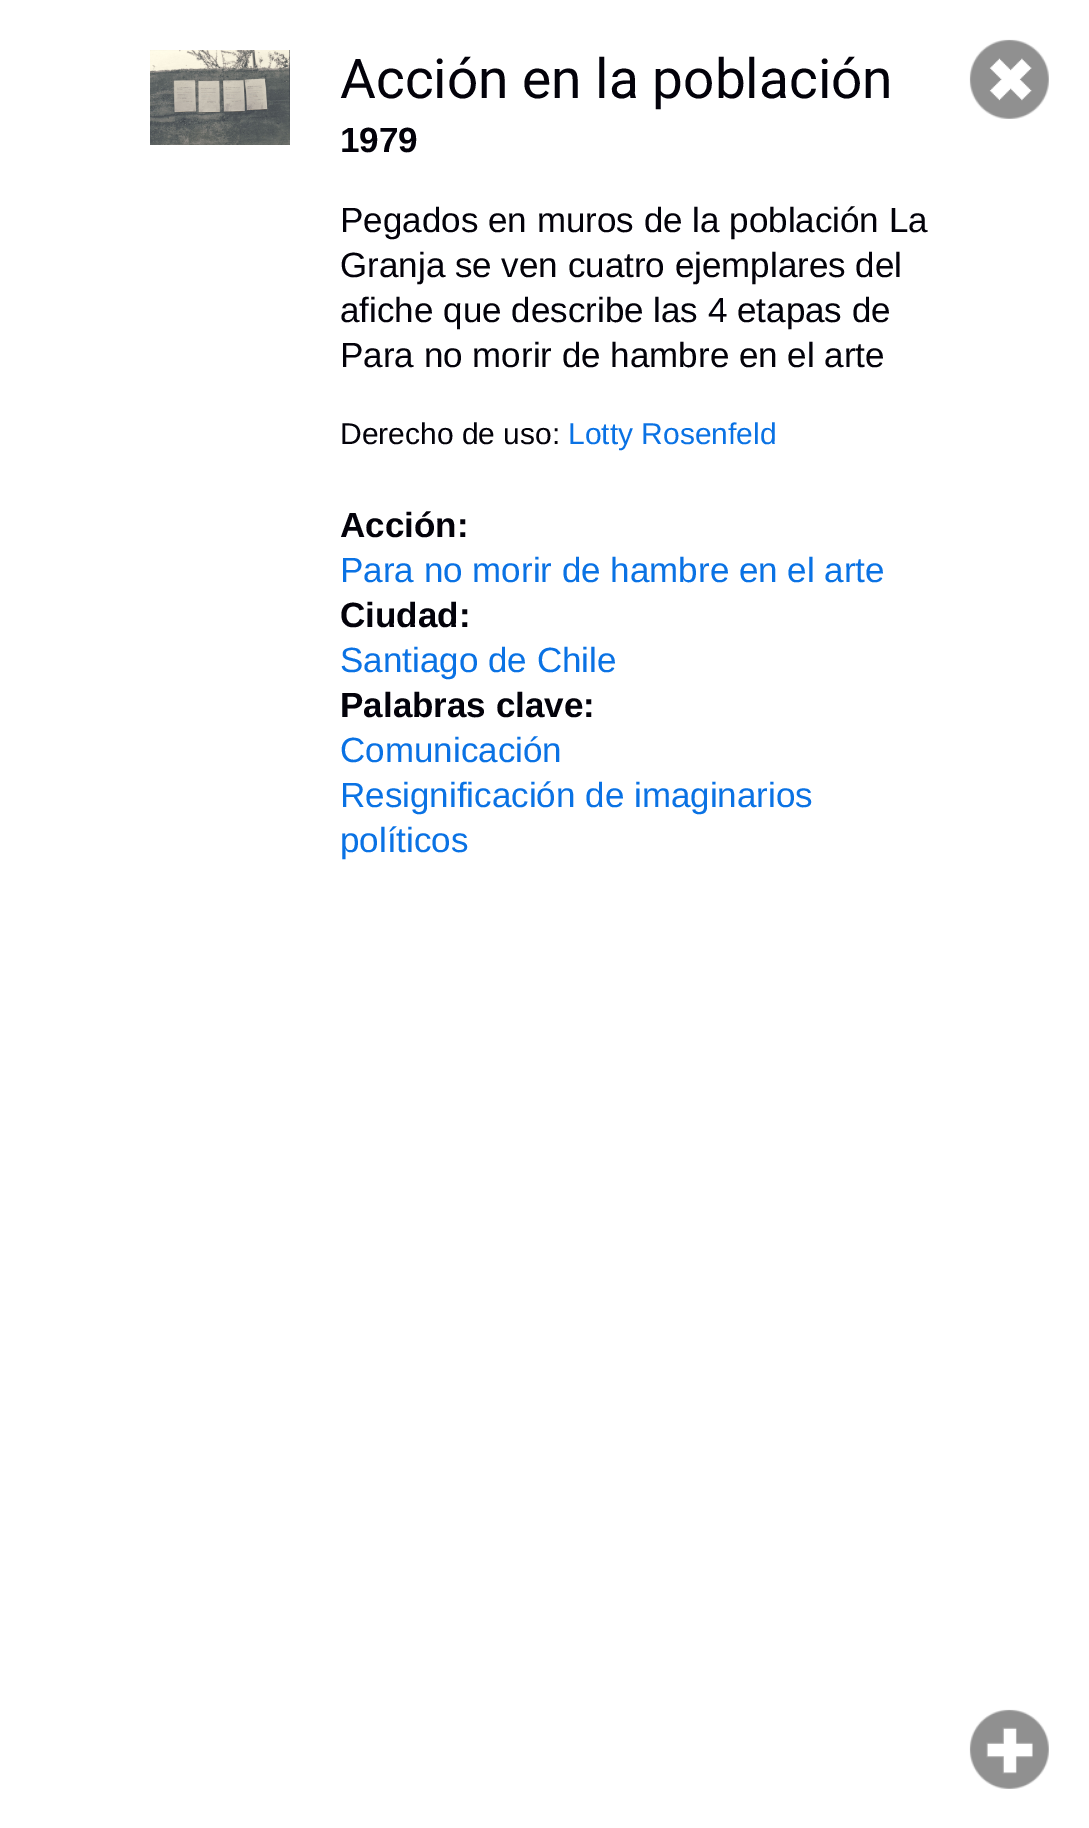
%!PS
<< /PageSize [1089 1828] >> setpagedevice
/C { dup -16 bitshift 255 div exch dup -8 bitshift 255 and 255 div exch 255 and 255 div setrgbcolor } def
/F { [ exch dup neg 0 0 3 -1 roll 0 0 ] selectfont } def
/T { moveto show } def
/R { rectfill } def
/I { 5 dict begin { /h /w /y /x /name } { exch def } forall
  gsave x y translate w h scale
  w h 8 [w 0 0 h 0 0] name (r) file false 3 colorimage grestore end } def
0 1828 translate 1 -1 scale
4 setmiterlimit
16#FFFFFF C
0 0 1089 1828 R
(1.rgb) 150 50 140 95 I
/Roboto-Regular 55 F
16#03020A C
(Acción en la población) 340 98 T
/LiberationSans-Bold 35 F
(1979) 340 152 T
/LiberationSans-Regular 35 F
(Pegados en muros de la población La) 340 232 T
(Granja se ven cuatro ejemplares del) 340 277 T
(afiche que describe las 4 etapas de) 340 322 T
(Para no morir de hambre en el arte) 340 367 T
/LiberationSans-Regular 30 F
(Derecho de uso:) 340 444 T
16#0A72E4 C
(Lotty Rosenfeld) 568 444 T
/LiberationSans-Bold 35 F
16#03020A C
(Acción:) 340 537 T
/LiberationSans-Regular 35 F
16#0A72E4 C
(Para no morir de hambre en el arte) 340 582 T
/LiberationSans-Bold 35 F
16#03020A C
(Ciudad:) 340 627 T
/LiberationSans-Regular 35 F
16#0A72E4 C
(Santiago de Chile) 340 672 T
/LiberationSans-Bold 35 F
16#03020A C
(Palabras clave:) 340 717 T
/LiberationSans-Regular 35 F
16#0A72E4 C
(Comunicación) 340 762 T
(Resignificación de imaginarios) 340 807 T
(políticos) 340 852 T
(2.rgb) 969 39 80 80 I
(3.rgb) 969 1709 80 80 I
showpage
